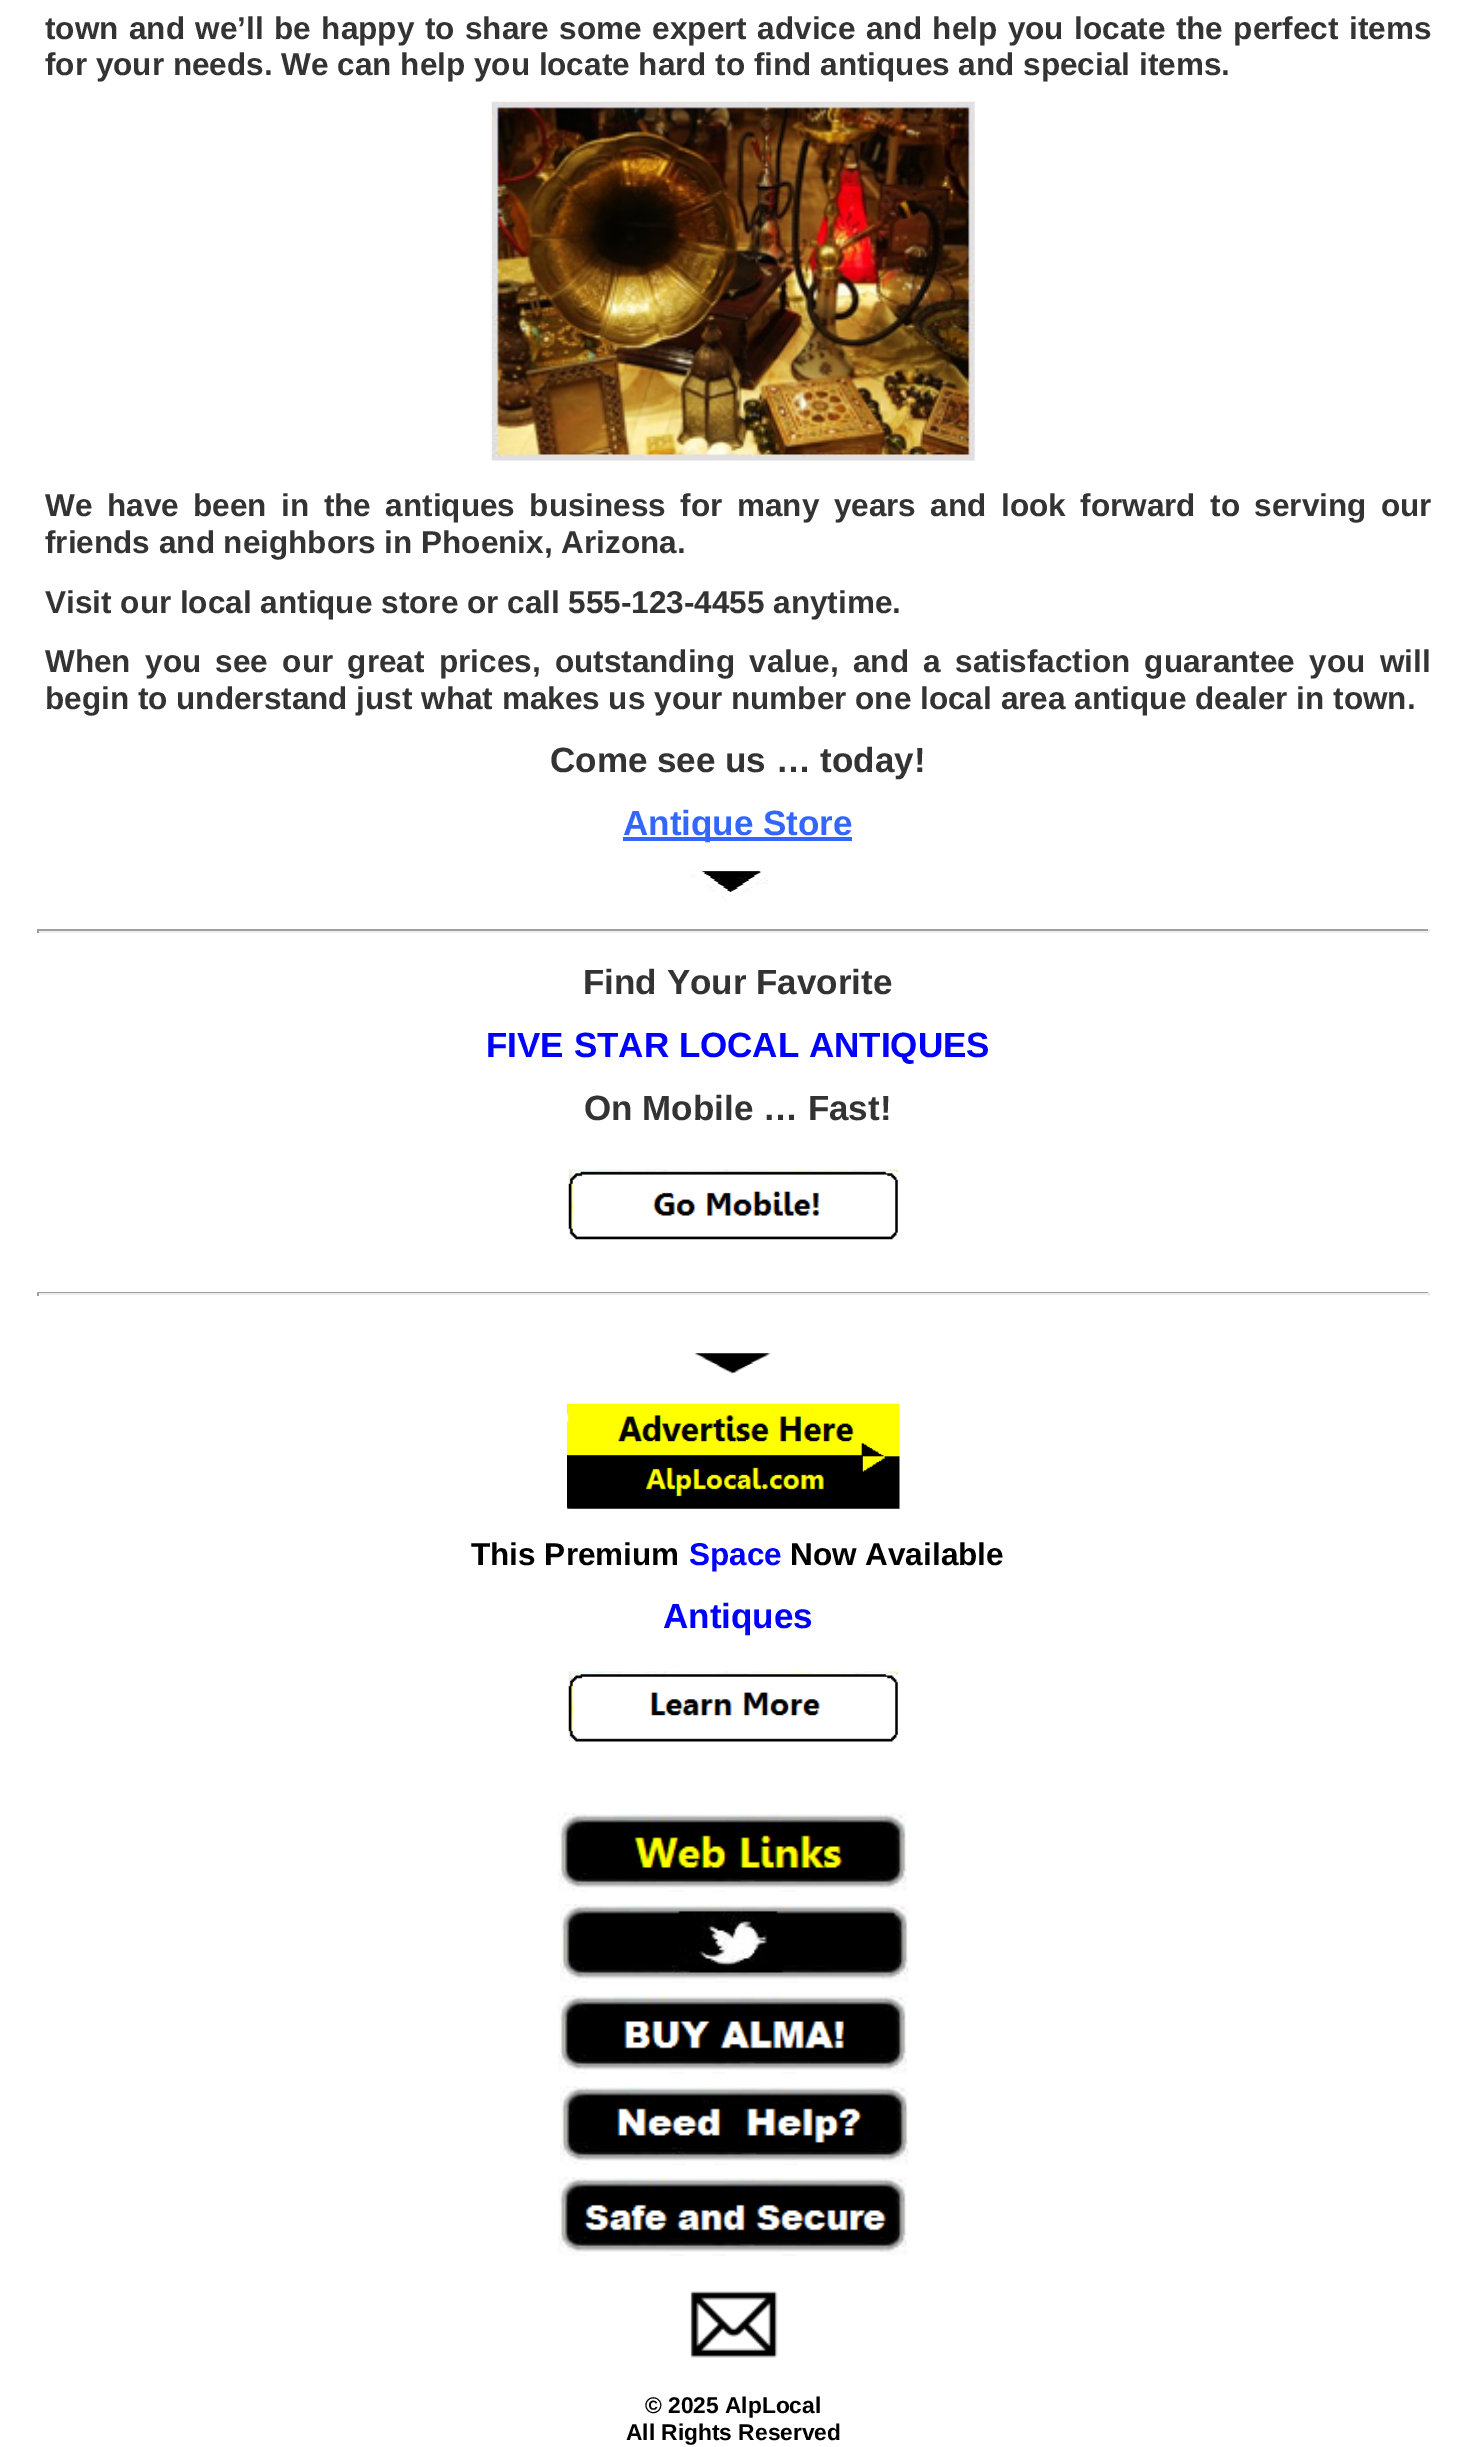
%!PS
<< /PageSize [1465 2447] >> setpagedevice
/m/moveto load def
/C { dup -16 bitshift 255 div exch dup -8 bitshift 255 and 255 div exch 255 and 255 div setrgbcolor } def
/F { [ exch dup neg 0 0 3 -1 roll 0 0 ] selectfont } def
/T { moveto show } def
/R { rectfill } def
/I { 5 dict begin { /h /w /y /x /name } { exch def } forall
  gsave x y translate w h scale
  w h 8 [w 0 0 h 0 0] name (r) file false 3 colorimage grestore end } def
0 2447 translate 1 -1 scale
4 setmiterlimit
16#FFFFFF C
0 0 1465 2447 R
/LiberationSans-Bold 31.5 F
16#333333 C
45 39 m 1.75 0 32 (town and we’ll be happy to share some expert advice and help you locate the perfect items) widthshow
(for your needs. We can help you locate hard to find antiques and special items.) 45 75 T
(1.rgb) 491 101 484 360 I
45 516 m 5.75 0 32 (We have been in the antiques business for many years and look forward to serving our) widthshow
(friends and neighbors in Phoenix, Arizona.) 45 553 T
(Visit our local antique store or call 555-123-4455 anytime.) 45 613 T
45 672 m 5.6 0 32 (When you see our great prices, outstanding value, and a satisfaction guarantee you will) widthshow
(begin to understand just what makes us your number one local area antique dealer in town.) 45 709 T
/LiberationSans-Bold 35 F
(Come see us … today!) 550 772 T
16#3366FF C
623 837 229 4 R
(Antique Store) 623 835 T
(2.rgb) 691 869 77 31 I
16#9F9F9F C
37 929 1393 2 R
16#EEEEEE C
1428 929 2 4 R
37 931 1393 2 R
16#9F9F9F C
37 929 2 4 R
16#333333 C
(Find Your Favorite) 583 994 T
16#0000FF C
(FIVE STAR LOCAL ANTIQUES) 486 1057 T
16#333333 C
(On Mobile … Fast!) 584 1120 T
(3.rgb) 568 1169 330 71 I
16#9F9F9F C
37 1292 1393 1 R
16#EEEEEE C
1428 1292 2 4 R
37 1293 1393 2 R
16#9F9F9F C
37 1292 2 4 R
(4.rgb) 695 1353 77 21 I
(5.rgb) 567 1403 333 106 I
/LiberationSans-Bold 31.5 F
16#000000 C
(This Premium) 471 1565 T
16#0000FF C
(Space) 689 1565 T
16#000000 C
(Now Available) 790 1565 T
/LiberationSans-Bold 35 F
16#0000FF C
(Antiques) 663 1628 T
(6.rgb) 568 1671 330 71 I
(7.rgb) 558 1813 349 79 I
(8.rgb) 560 1904 349 79 I
(9.rgb) 558 1995 349 79 I
(10.rgb) 560 2086 349 79 I
(11.rgb) 558 2177 349 79 I
(12.rgb) 690 2290 88 68 I
/LiberationSans-Bold 22.75 F
16#000000 C
(© 2025 AlpLocal) 645 2413 T
(All Rights Reserved) 626 2440 T
showpage
